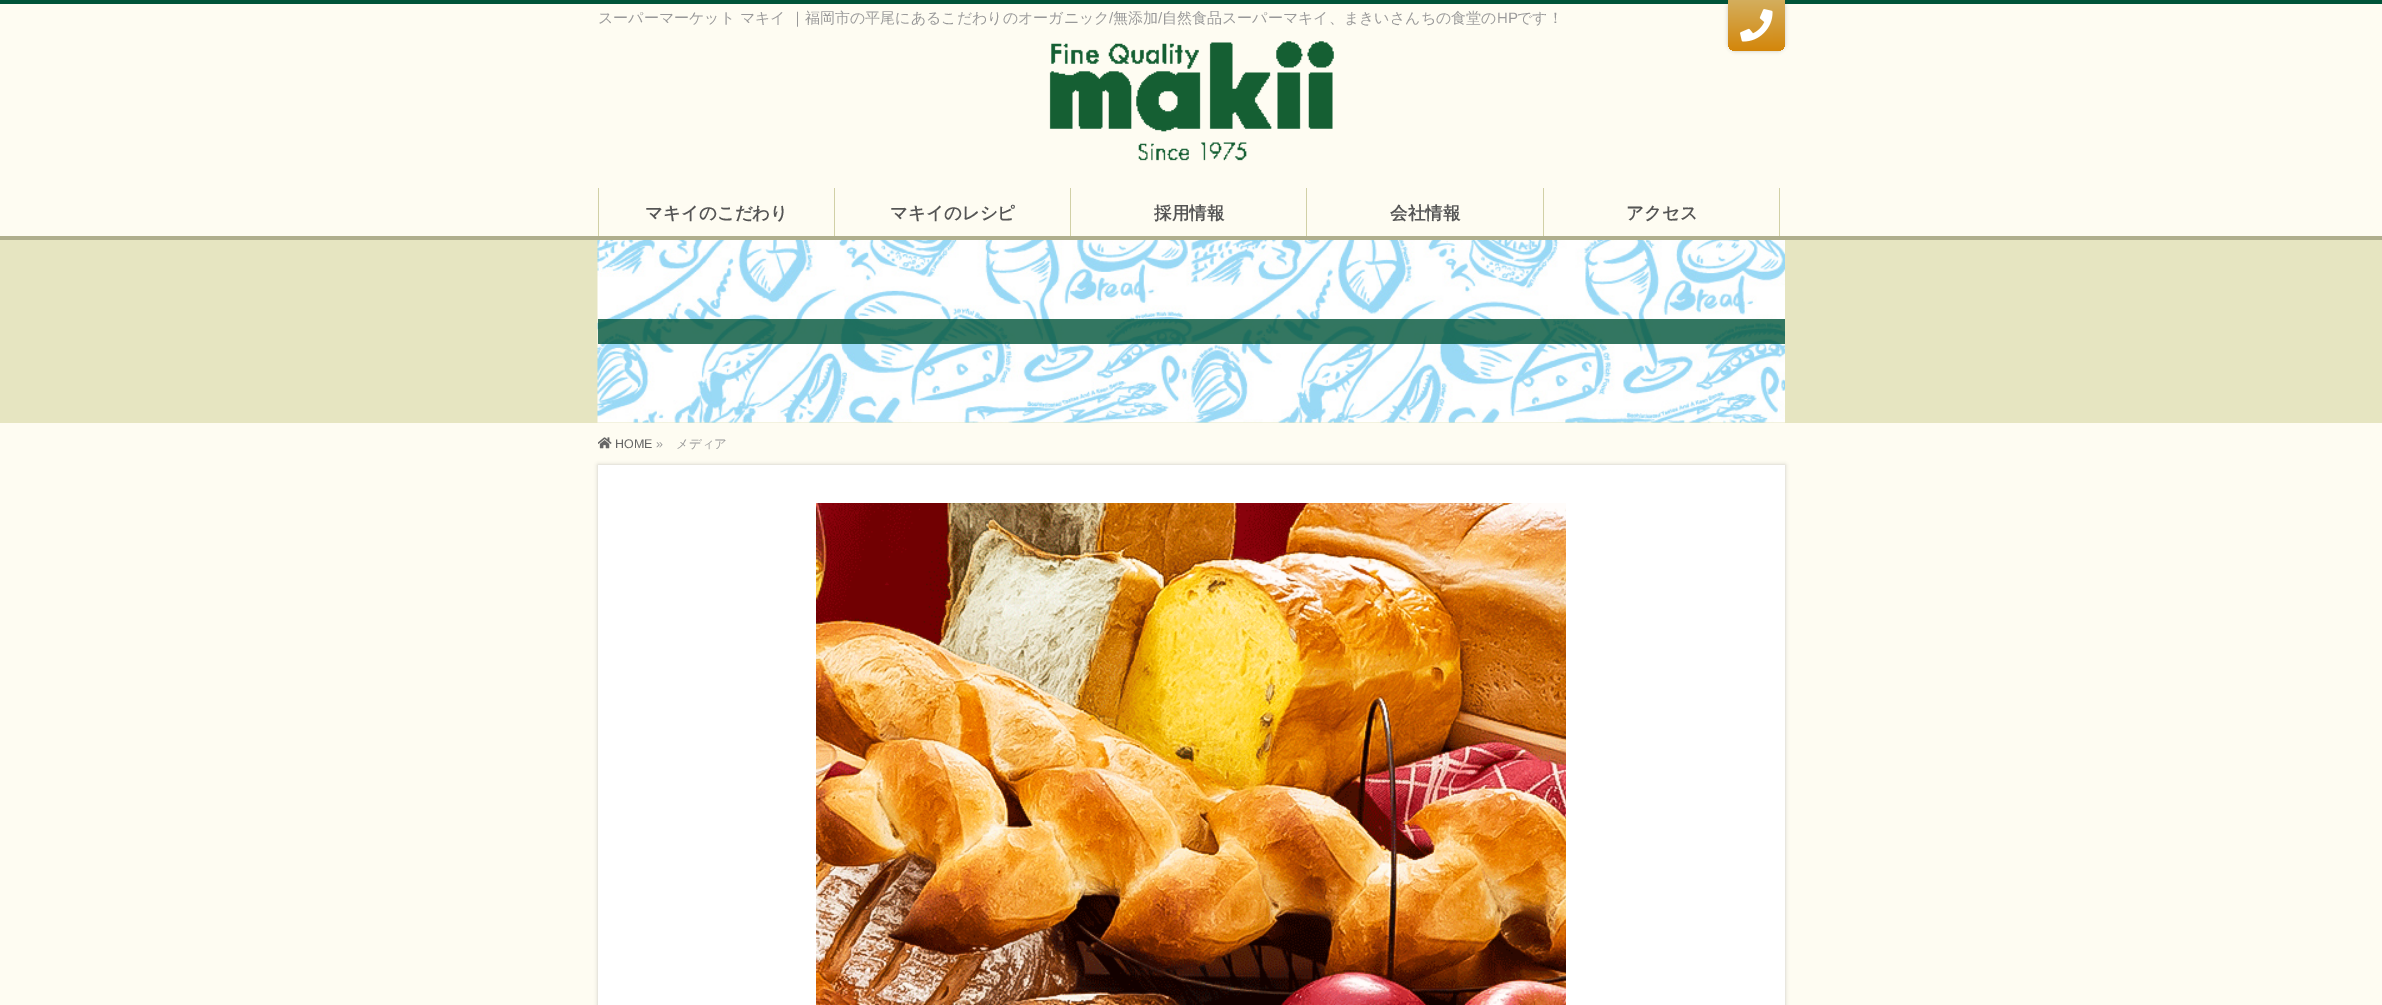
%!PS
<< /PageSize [2382 1005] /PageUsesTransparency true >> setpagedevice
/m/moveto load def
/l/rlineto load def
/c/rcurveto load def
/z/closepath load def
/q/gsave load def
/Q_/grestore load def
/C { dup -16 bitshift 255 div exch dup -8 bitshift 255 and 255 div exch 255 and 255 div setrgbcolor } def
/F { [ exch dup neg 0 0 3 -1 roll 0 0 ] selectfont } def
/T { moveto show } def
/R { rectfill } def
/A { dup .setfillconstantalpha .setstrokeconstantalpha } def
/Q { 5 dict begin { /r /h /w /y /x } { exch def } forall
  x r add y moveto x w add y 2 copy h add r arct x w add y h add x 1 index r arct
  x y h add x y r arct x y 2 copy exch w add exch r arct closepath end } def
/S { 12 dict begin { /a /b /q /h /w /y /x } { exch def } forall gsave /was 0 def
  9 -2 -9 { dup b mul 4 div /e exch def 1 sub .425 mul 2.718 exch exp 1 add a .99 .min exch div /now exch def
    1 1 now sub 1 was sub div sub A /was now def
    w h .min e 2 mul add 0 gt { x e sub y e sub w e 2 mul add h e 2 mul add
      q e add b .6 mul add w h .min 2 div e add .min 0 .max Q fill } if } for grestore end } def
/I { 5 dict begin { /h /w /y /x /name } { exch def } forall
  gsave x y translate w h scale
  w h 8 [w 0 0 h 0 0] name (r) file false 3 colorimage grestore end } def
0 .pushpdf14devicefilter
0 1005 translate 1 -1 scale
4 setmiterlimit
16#E6E5C1 C
0 0 2382 1005 R
16#FEFCF2 C
0 4 2382 232 R
16#005439 C
0 0 2382 4 R
16#000000 C
1728 0 57 51 8 2 .2 S
q 1728 0 m 57 0 l 0 43 l 0 4.5 -3.5 8 -8 8 c -41 0 l -4.5 0 -8 -3.5 -8 -8 c z clip newpath
<< /ShadingType 2 /ColorSpace /DeviceRGB /Coords [1756 0 1756 51] /Extend [true true] /Function << /FunctionType 2 /Domain [0 1] /C0 [.827 .682 .365] /C1 [.827 .525 .039] /N 1 >> >> shfill Q_
(1.rgb) 1740 9 33 33 I
(2.rgb) 1049 41 285 120 I
/WenQuanYiZenHei-Medium 15 F
16#999999 C
(スーパーマーケット マキイ ｜福岡市の平尾にあるこだわりのオーガニック) 598 23 T
/LiberationSans-Regular 15 F
(/) 1109 23 T
/WenQuanYiZenHei-Medium 15 F
(無添加) 1113 23 T
/LiberationSans-Regular 15 F
(/) 1158 23 T
/WenQuanYiZenHei-Medium 15 F
(自然食品スーパーマキイ、まきいさんちの食堂の) 1162 23 T
/LiberationSans-Regular 15 F
(HP) 1497 23 T
/WenQuanYiZenHei-Medium 15 F
(です！) 1517 23 T
16#AFAE8D C
0 236 2382 4 R
16#D1D0A6 C
598 188 1 48 R
834 188 1 48 R
/WenQuanYiZenHei-Bold 17.5 F
16#555555 C
(マキイのこだわり) 645 219 T
16#D1D0A6 C
1070 188 1 48 R
16#555555 C
(マキイのレシピ) 890 219 T
16#D1D0A6 C
1306 188 1 48 R
16#555555 C
(採用情報) 1154 219 T
16#D1D0A6 C
1543 188 1 48 R
16#555555 C
(会社情報) 1390 219 T
16#D1D0A6 C
1779 188 1 48 R
16#555555 C
(アクセス) 1626 219 T
(3.rgb) 597 240 1188 183 I
0.8 A
16#005439 C
598 319 1187 25 R
1 A
16#FEFCF2 C
0 423 2382 582 R
16#000000 C
598 465 1187 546 0 2 .2 S
16#FFFFFF C
598 465 1187 540 R
(4.rgb) 816 503 750 502 I
(5.rgb) 598 437 14 12 I
/LiberationSans-Regular 12.5 F
16#666666 C
(HOME) 615 448 T
16#999999 C
(») 656 448 T
/WenQuanYiZenHei-Medium 12.5 F
(メディア) 676 448 T
.poppdf14devicefilter showpage
